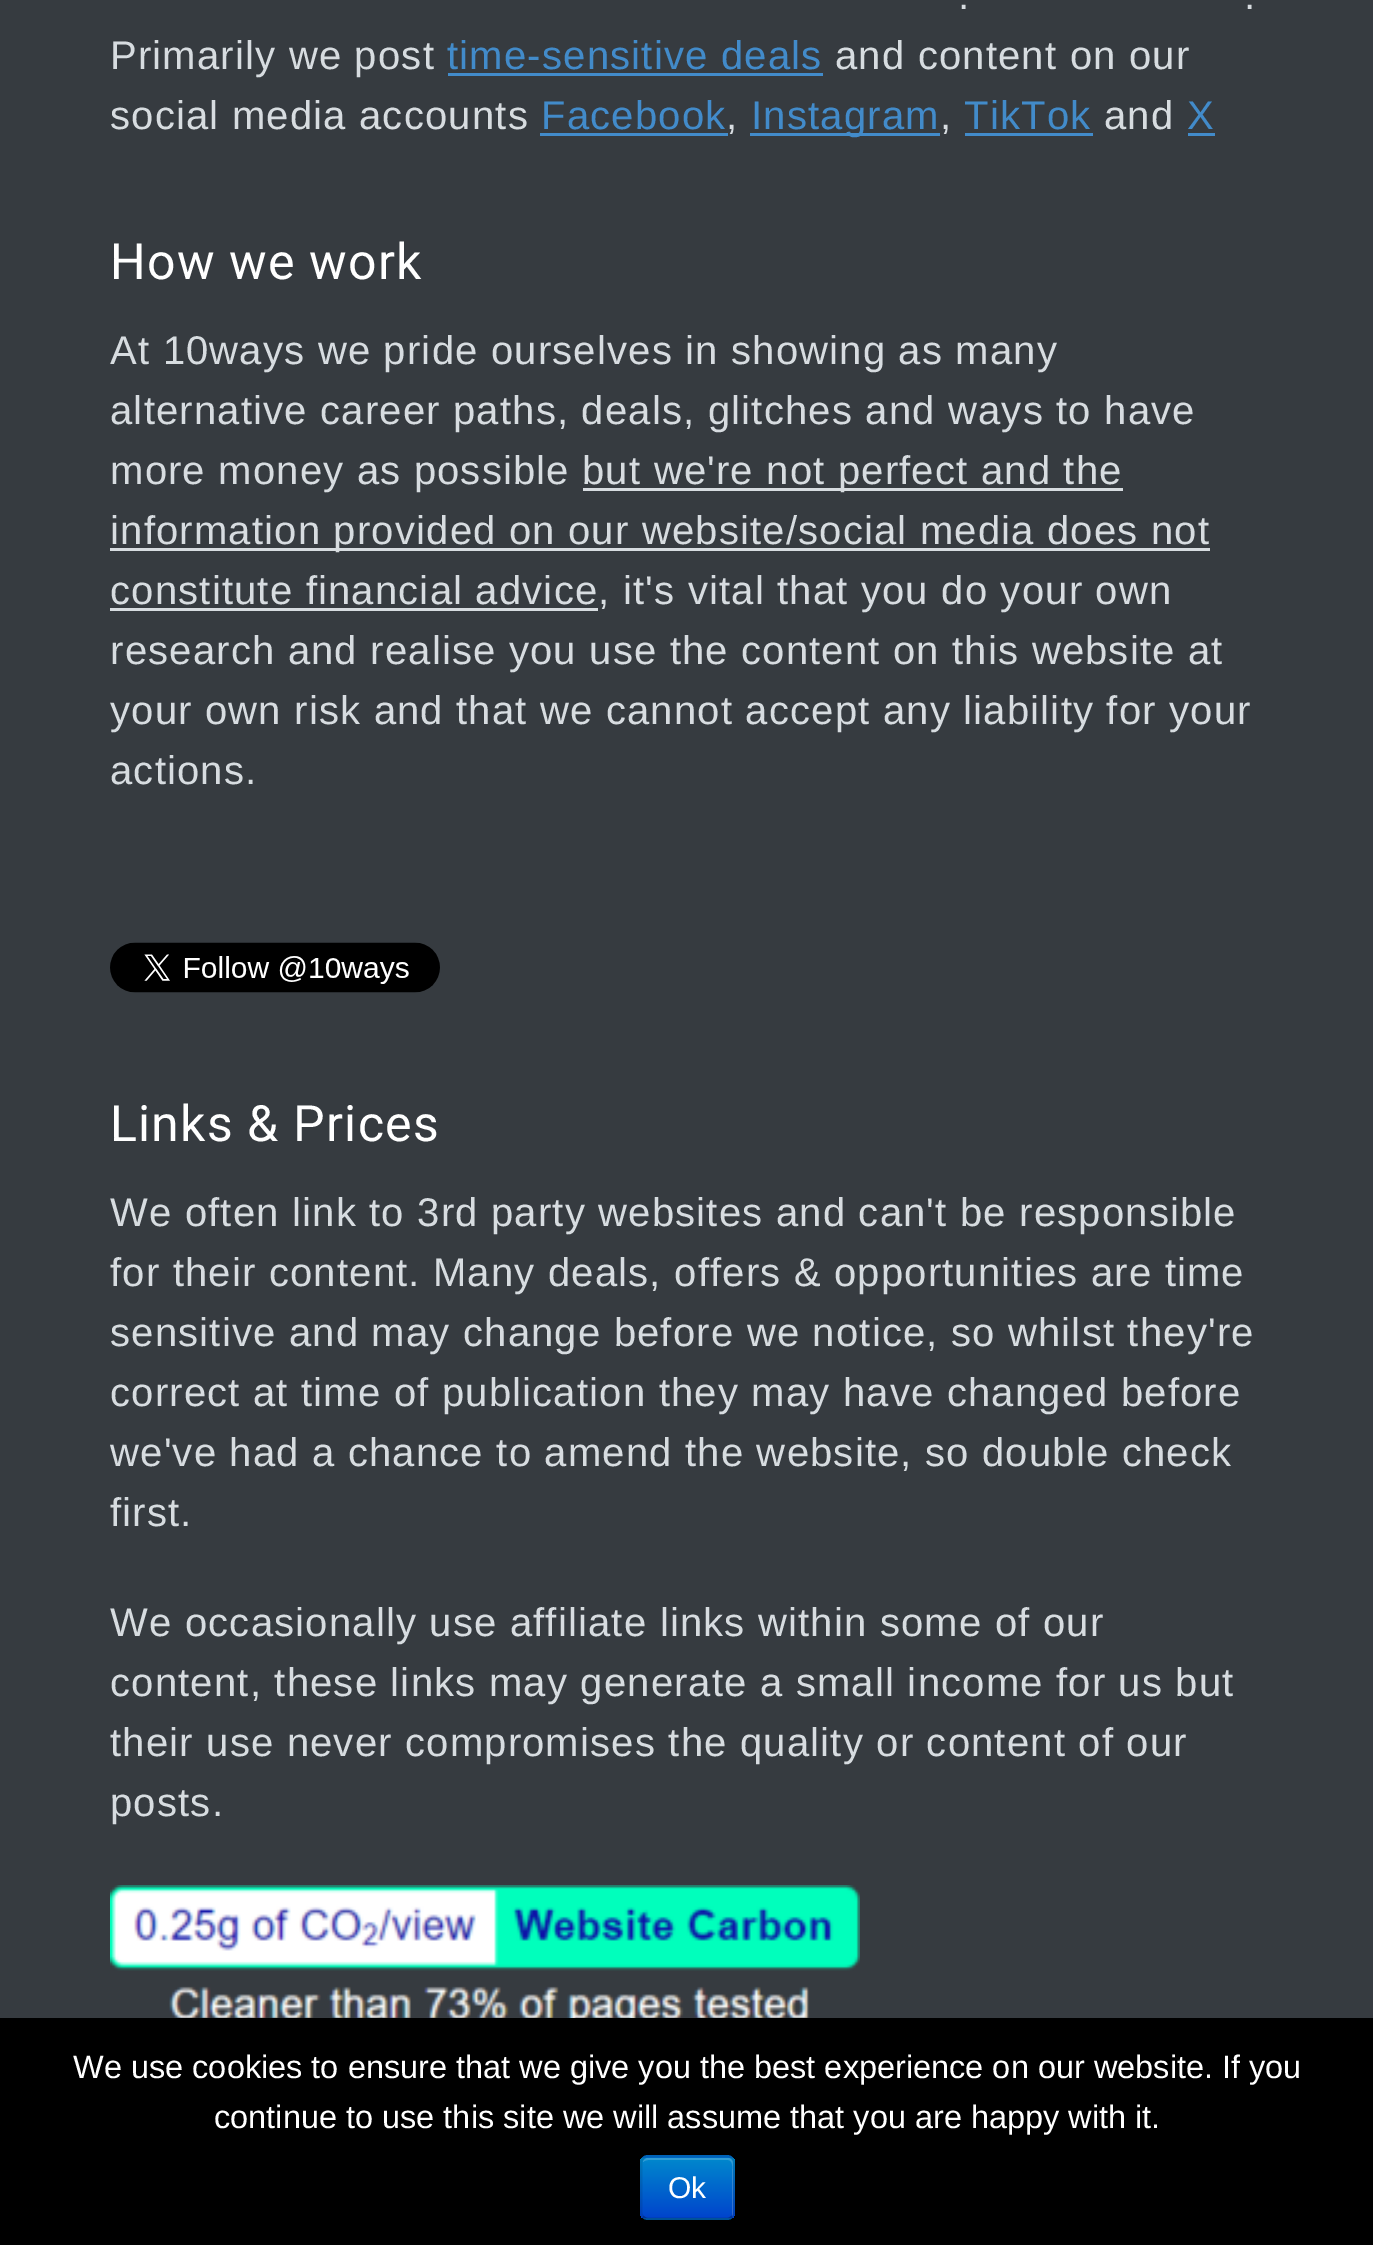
%!PS
<< /PageSize [1373 2245] /PageUsesTransparency true >> setpagedevice
/m/moveto load def
/l/rlineto load def
/c/rcurveto load def
/z/closepath load def
/f/fill load def
/s/stroke load def
/q/gsave load def
/Q_/grestore load def
/w/setlinewidth load def
/C { dup -16 bitshift 255 div exch dup -8 bitshift 255 and 255 div exch 255 and 255 div setrgbcolor } def
/F { [ exch dup neg 0 0 3 -1 roll 0 0 ] selectfont } def
/T { moveto show } def
/R { rectfill } def
/A { dup .setfillconstantalpha .setstrokeconstantalpha } def
/Q { 5 dict begin { /r /h /w /y /x } { exch def } forall
  x r add y moveto x w add y 2 copy h add r arct x w add y h add x 1 index r arct
  x y h add x y r arct x y 2 copy exch w add exch r arct closepath end } def
/I { 5 dict begin { /h /w /y /x /name } { exch def } forall
  gsave x y translate w h scale
  w h 8 [w 0 0 h 0 0] name (r) file false 3 colorimage grestore end } def
0 .pushpdf14devicefilter
0 2245 translate 1 -1 scale
4 setmiterlimit
16#363B40 C
0 0 1373 2245 R
/LiberationSans-Regular 40 F
16#D7DCE0 C
958 9 m 1.2 0 (.) ashow
1244 9 m 1.2 0 (.) ashow
110 69 m 1.2 0 (Primarily we post) ashow
16#428BCA C
447 69 m 1.2 0 (time-sensitive deals) ashow
448 73 375 3 R
16#D7DCE0 C
835 69 m 1.2 0 (and content on our) ashow
110 129 m 1.2 0 (social media accounts) ashow
16#428BCA C
541 129 m 1.2 0 (Facebook) ashow
540 133 188 3 R
16#D7DCE0 C
726 129 m 1.2 0 (,) ashow
16#428BCA C
750 133 190 3 R
751 129 m 1.2 0 (Instagram) ashow
16#D7DCE0 C
940 129 m 1.2 0 (,) ashow
16#428BCA C
964 129 m 1.2 0 (TikTok) ashow
965 133 128 3 R
16#D7DCE0 C
1104 129 m 1.2 0 (and) ashow
16#428BCA C
1187 129 m 1.2 0 (X) ashow
1188 133 27 3 R
/Roboto-Regular 50 F
16#FFFFFF C
110 279 m 1.2 0 (How we work) ashow
/LiberationSans-Regular 40 F
16#D7DCE0 C
110 364 m 1.2 0 (At 10ways we pride ourselves in showing as many) ashow
110 424 m 1.2 0 (alternative career paths, deals, glitches and ways to have) ashow
110 484 m 1.2 0 (more money as possible) ashow
583 488 540 3 R
582 484 m 1.2 0 (but we're not perfect and the) ashow
110 548 1100 3 R
110 544 m 1.2 0 (information provided on our website/social media does not) ashow
110 608 488 3 R
110 604 m 1.2 0 (constitute financial advice, it's vital that you do your own) ashow
110 664 m 1.2 0 (research and realise you use the content on this website at) ashow
110 724 m 1.2 0 (your own risk and that we cannot accept any liability for your) ashow
110 784 m 1.2 0 (actions.) ashow
(1.rgb) 110 942 330 51 I
/Roboto-Regular 50 F
16#FFFFFF C
110 1141 m 1.2 0 (Links & Prices) ashow
/LiberationSans-Regular 40 F
16#D7DCE0 C
110 1226 m 1.2 0 (We often link to 3rd party websites and can't be responsible) ashow
110 1286 m 1.2 0 (for their content. Many deals, offers & opportunities are time) ashow
110 1346 m 1.2 0 (sensitive and may change before we notice, so whilst they're) ashow
110 1406 m 1.2 0 (correct at time of publication they may have changed before) ashow
110 1466 m 1.2 0 (we've had a chance to amend the website, so double check) ashow
110 1526 m 1.2 0 (first.) ashow
110 1636 m 1.2 0 (We occasionally use affiliate links within some of our) ashow
110 1696 m 1.2 0 (content, these links may generate a small income for us but) ashow
110 1756 m 1.2 0 (their use never compromises the quality or content of our) ashow
110 1816 m 1.2 0 (posts.) ashow
(2.rgb) 110 1885 750 133 I
16#000000 C
0 2018 1373 227 R
/LiberationSans-Regular 32.5 F
16#FFFFFF C
(We use cookies to ensure that we give you the best experience on our website. If you) 73 2078 T
(continue to use this site we will assume that you are happy with it.) 214 2128 T
16#006DCC C
640 2155 95 65 8 Q f
q
640 2155 95 65 8 Q clip newpath
q 640 2158 m 95 0 l 0 60 l -95 0 l z clip newpath
<< /ShadingType 2 /ColorSpace /DeviceRGB /Coords [688 2158 688 2218] /Extend [true true] /Function << /FunctionType 2 /Domain [0 1] /C0 [0 .533 .8] /C1 [0 .267 .8] /N 1 >> >> shfill Q_
Q_
0.2 A
16#FFFFFF C
648 2160 m 80 0 l 6 0 4 11 4 13 c 0 43 l 1 -1 1 -2 1 -3 c 0 -50 l 0 -3 -2 -5 -5 -5 c -80 0 l -2 0 -5 2 -5 4 c 1 -1 3 -2 5 -2 c z f
0.25 A
16#000000 C
2.5 w
732 2217 m -1.5 1 -3 2 -4.5 2 c -80 0 l -1.5 0 -3 -1 -4.5 -2 c s
0.1 A
643 2217 m -1 -1.5 -2 -3 -2 -4.5 c 0 -50 l 0 -1.5 1 -3 2 -4.5 c 1.5 -1 3 -2 4.5 -2 c 80 0 l 1.5 0 3 1 4.5 2 c 1 1.5 2 3 2 4.5 c 0 50 l 0 1.5 -1 3 -2 4.5 c s
/LiberationSans-Regular 30 F
1 A
16#FFFFFF C
(Ok) 668 2198 T
.poppdf14devicefilter showpage
